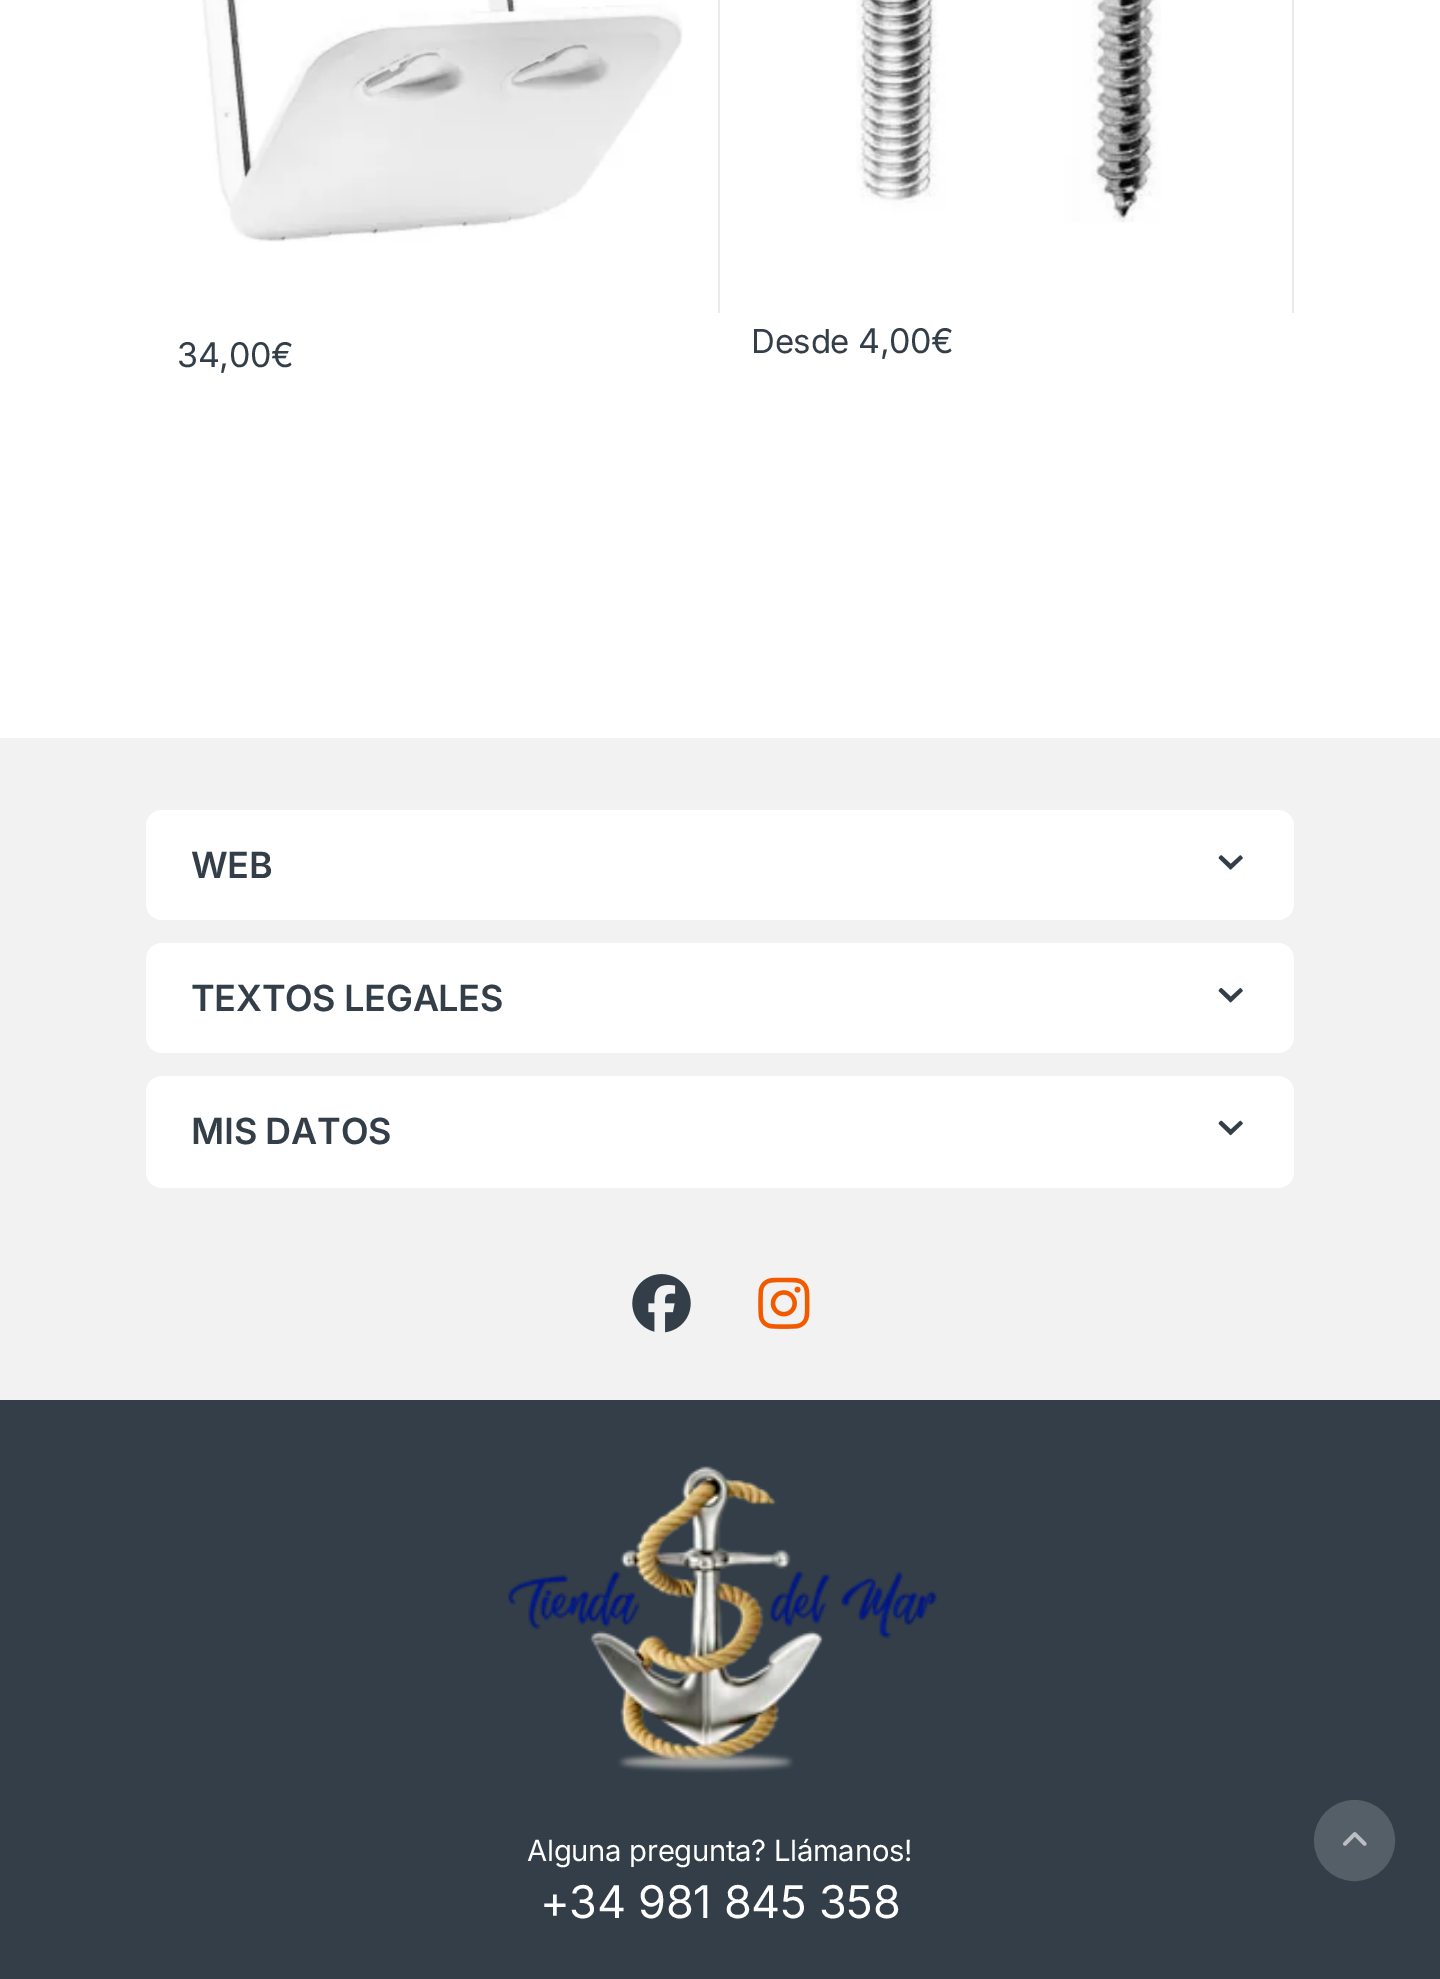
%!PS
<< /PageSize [1440 1979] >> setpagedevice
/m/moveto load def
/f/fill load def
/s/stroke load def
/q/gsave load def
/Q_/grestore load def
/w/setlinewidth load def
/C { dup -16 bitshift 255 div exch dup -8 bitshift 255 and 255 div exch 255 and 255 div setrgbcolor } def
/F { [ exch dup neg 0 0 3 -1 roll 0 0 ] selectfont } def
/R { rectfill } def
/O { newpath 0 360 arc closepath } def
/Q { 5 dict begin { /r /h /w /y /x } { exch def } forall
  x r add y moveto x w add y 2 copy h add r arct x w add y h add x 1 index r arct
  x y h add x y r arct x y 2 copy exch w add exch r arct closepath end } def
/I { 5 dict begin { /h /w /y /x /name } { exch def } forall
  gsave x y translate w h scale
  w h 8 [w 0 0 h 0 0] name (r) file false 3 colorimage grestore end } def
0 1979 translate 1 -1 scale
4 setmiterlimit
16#FFFFFF C
0 0 1440 1979 R
16#EAEAEA C
718 0 2 313 R
(1.rgb) 202 0 481 242 I
/Inter-Regular 34 F
16#333E48 C
177 367 m -.3 0 (34,00€) ashow
16#EAEAEA C
1292 0 2 313 R
(2.rgb) 856 0 305 223 I
/Inter-Regular 33 F
16#333E48 C
751 353 m -.3 0 (Desde) ashow
/Inter-Regular 34 F
858 353 m -.3 0 (4,00€) ashow
16#F2F2F2 C
0 738 1440 662 R
16#FFFFFF C
146 810 1148 110 16 Q f
/Inter-SemiBold 36 F
16#333E48 C
191 878 m -.3 0 (WEB) ashow
(3.rgb) 1218 855 25 15 I
16#FFFFFF C
146 943 1148 110 16 Q f
16#333E48 C
191 1011 m -.3 0 (TEXTOS LEGALES) ashow
(4.rgb) 1218 988 25 15 I
16#FFFFFF C
146 1076 1148 112 16 Q f
16#333E48 C
191 1144 m -.3 0 (MIS DATOS) ashow
(5.rgb) 1218 1120 25 16 I
(6.rgb) 632 1274 59 59 I
(7.rgb) 758 1277 52 52 I
0 1400 1440 579 R
(8.rgb) 508 1466 429 307 I
/Inter-Regular 29.25 F
16#FFFFFF C
527 1861 m -.3 0 (Alguna pregunta? Llámanos!) ashow
/Inter-Regular 45 F
540 1918 m -.3 0 (+34 981 845 358) ashow
16#555F68 C
1354.5 1840.5 39.5 O q f Q_
2 w
s
(9.rgb) 1343 1832 24 14 I
showpage
